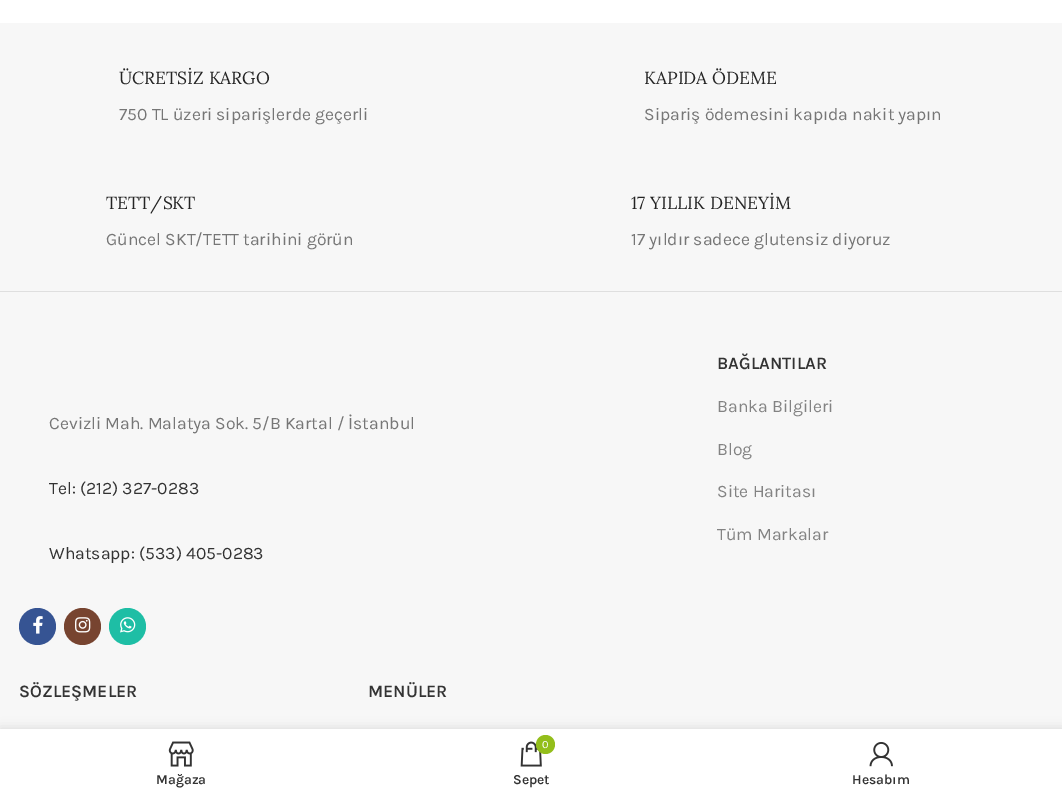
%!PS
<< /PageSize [1062 797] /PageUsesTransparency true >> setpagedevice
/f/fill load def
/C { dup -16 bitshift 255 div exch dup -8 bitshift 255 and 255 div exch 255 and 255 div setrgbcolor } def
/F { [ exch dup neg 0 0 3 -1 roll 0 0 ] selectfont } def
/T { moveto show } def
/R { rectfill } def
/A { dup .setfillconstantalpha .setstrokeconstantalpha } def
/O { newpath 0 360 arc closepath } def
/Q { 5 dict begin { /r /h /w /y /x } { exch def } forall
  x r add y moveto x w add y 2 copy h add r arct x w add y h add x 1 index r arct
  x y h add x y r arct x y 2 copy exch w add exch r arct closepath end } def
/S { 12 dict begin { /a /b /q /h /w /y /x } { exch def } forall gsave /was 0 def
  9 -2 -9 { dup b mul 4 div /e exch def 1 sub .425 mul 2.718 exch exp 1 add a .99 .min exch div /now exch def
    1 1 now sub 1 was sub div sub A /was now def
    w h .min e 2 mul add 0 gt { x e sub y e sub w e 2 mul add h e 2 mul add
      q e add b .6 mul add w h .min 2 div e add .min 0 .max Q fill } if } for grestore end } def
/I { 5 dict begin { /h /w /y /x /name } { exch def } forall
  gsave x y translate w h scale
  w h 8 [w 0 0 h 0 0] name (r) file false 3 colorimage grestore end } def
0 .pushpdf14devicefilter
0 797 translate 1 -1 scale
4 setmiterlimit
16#FFFFFF C
0 0 1062 797 R
16#F7F7F7 C
0 23 1062 706 R
16#DFDFDF C
0 291 1062 1 R
/Lora-Regular 17.5 F
16#242424 C
(ÜCRETSİZ KARGO) 119 84 T
/Karla-Regular 17.5 F
16#767676 C
(750 TL üzeri siparişlerde geçerli) 119 120 T
/Lora-Regular 17.5 F
16#242424 C
(KAPIDA ÖDEME) 644 84 T
/Karla-Regular 17.5 F
16#767676 C
(Sipariş ödemesini kapıda nakit yapın) 644 120 T
/Lora-Regular 17.5 F
16#242424 C
(TETT/SKT) 106 209 T
/Karla-Regular 17.5 F
16#767676 C
(Güncel SKT/TETT tarihini görün) 106 245 T
/Lora-Regular 17.5 F
16#242424 C
(17 YILLIK DENEYİM) 631 209 T
/Karla-Regular 17.5 F
16#767676 C
(17 yıldır sadece glutensiz diyoruz) 631 245 T
(Cevizli Mah. Malatya Sok. 5/B Kartal / İstanbul) 49 429 T
16#333333 C
(Tel: \(212\) 327-0283) 49 494 T
(Whatsapp: \(533\) 405-0283) 49 559 T
16#365493 C
37.5 626.5 18.5 O f
(1.rgb) 33 616 10 18 I
16#774430 C
82.5 626.5 18.5 O f
(2.rgb) 75 617 16 16 I
16#1EBEA5 C
127.5 626.5 18.5 O f
(3.rgb) 120 617 16 16 I
/Karla-SemiBold 17.5 F
16#333333 C
(BAĞLANTILAR) 717 369 T
/Karla-Regular 17.5 F
16#838383 C
(Banka Bilgileri) 717 412 T
(Blog) 717 455 T
(Site Haritası) 717 497 T
(Tüm Markalar) 717 540 T
/Karla-SemiBold 17.5 F
16#333333 C
(SÖZLEŞMELER) 19 697 T
(MENÜLER) 368 697 T
16#000000 C
0 729 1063 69 0 5.5 .12 S
16#FFFFFF C
0 729 1062 68 R
(4.rgb) 168 741 26 26 I
/Karla-SemiBold 13.75 F
16#333333 C
(Mağaza) 156 784 T
(5.rgb) 520 741 22 26 I
16#93BE1B C
545.5 744.5 9.5 O f
/Karla-Regular 11 F
16#FFFFFF C
(0) 542 748 T
/Karla-SemiBold 13.75 F
16#333333 C
(Sepet) 513 784 T
(6.rgb) 869 742 24 25 I
(Hesabım) 852 784 T
.poppdf14devicefilter showpage
